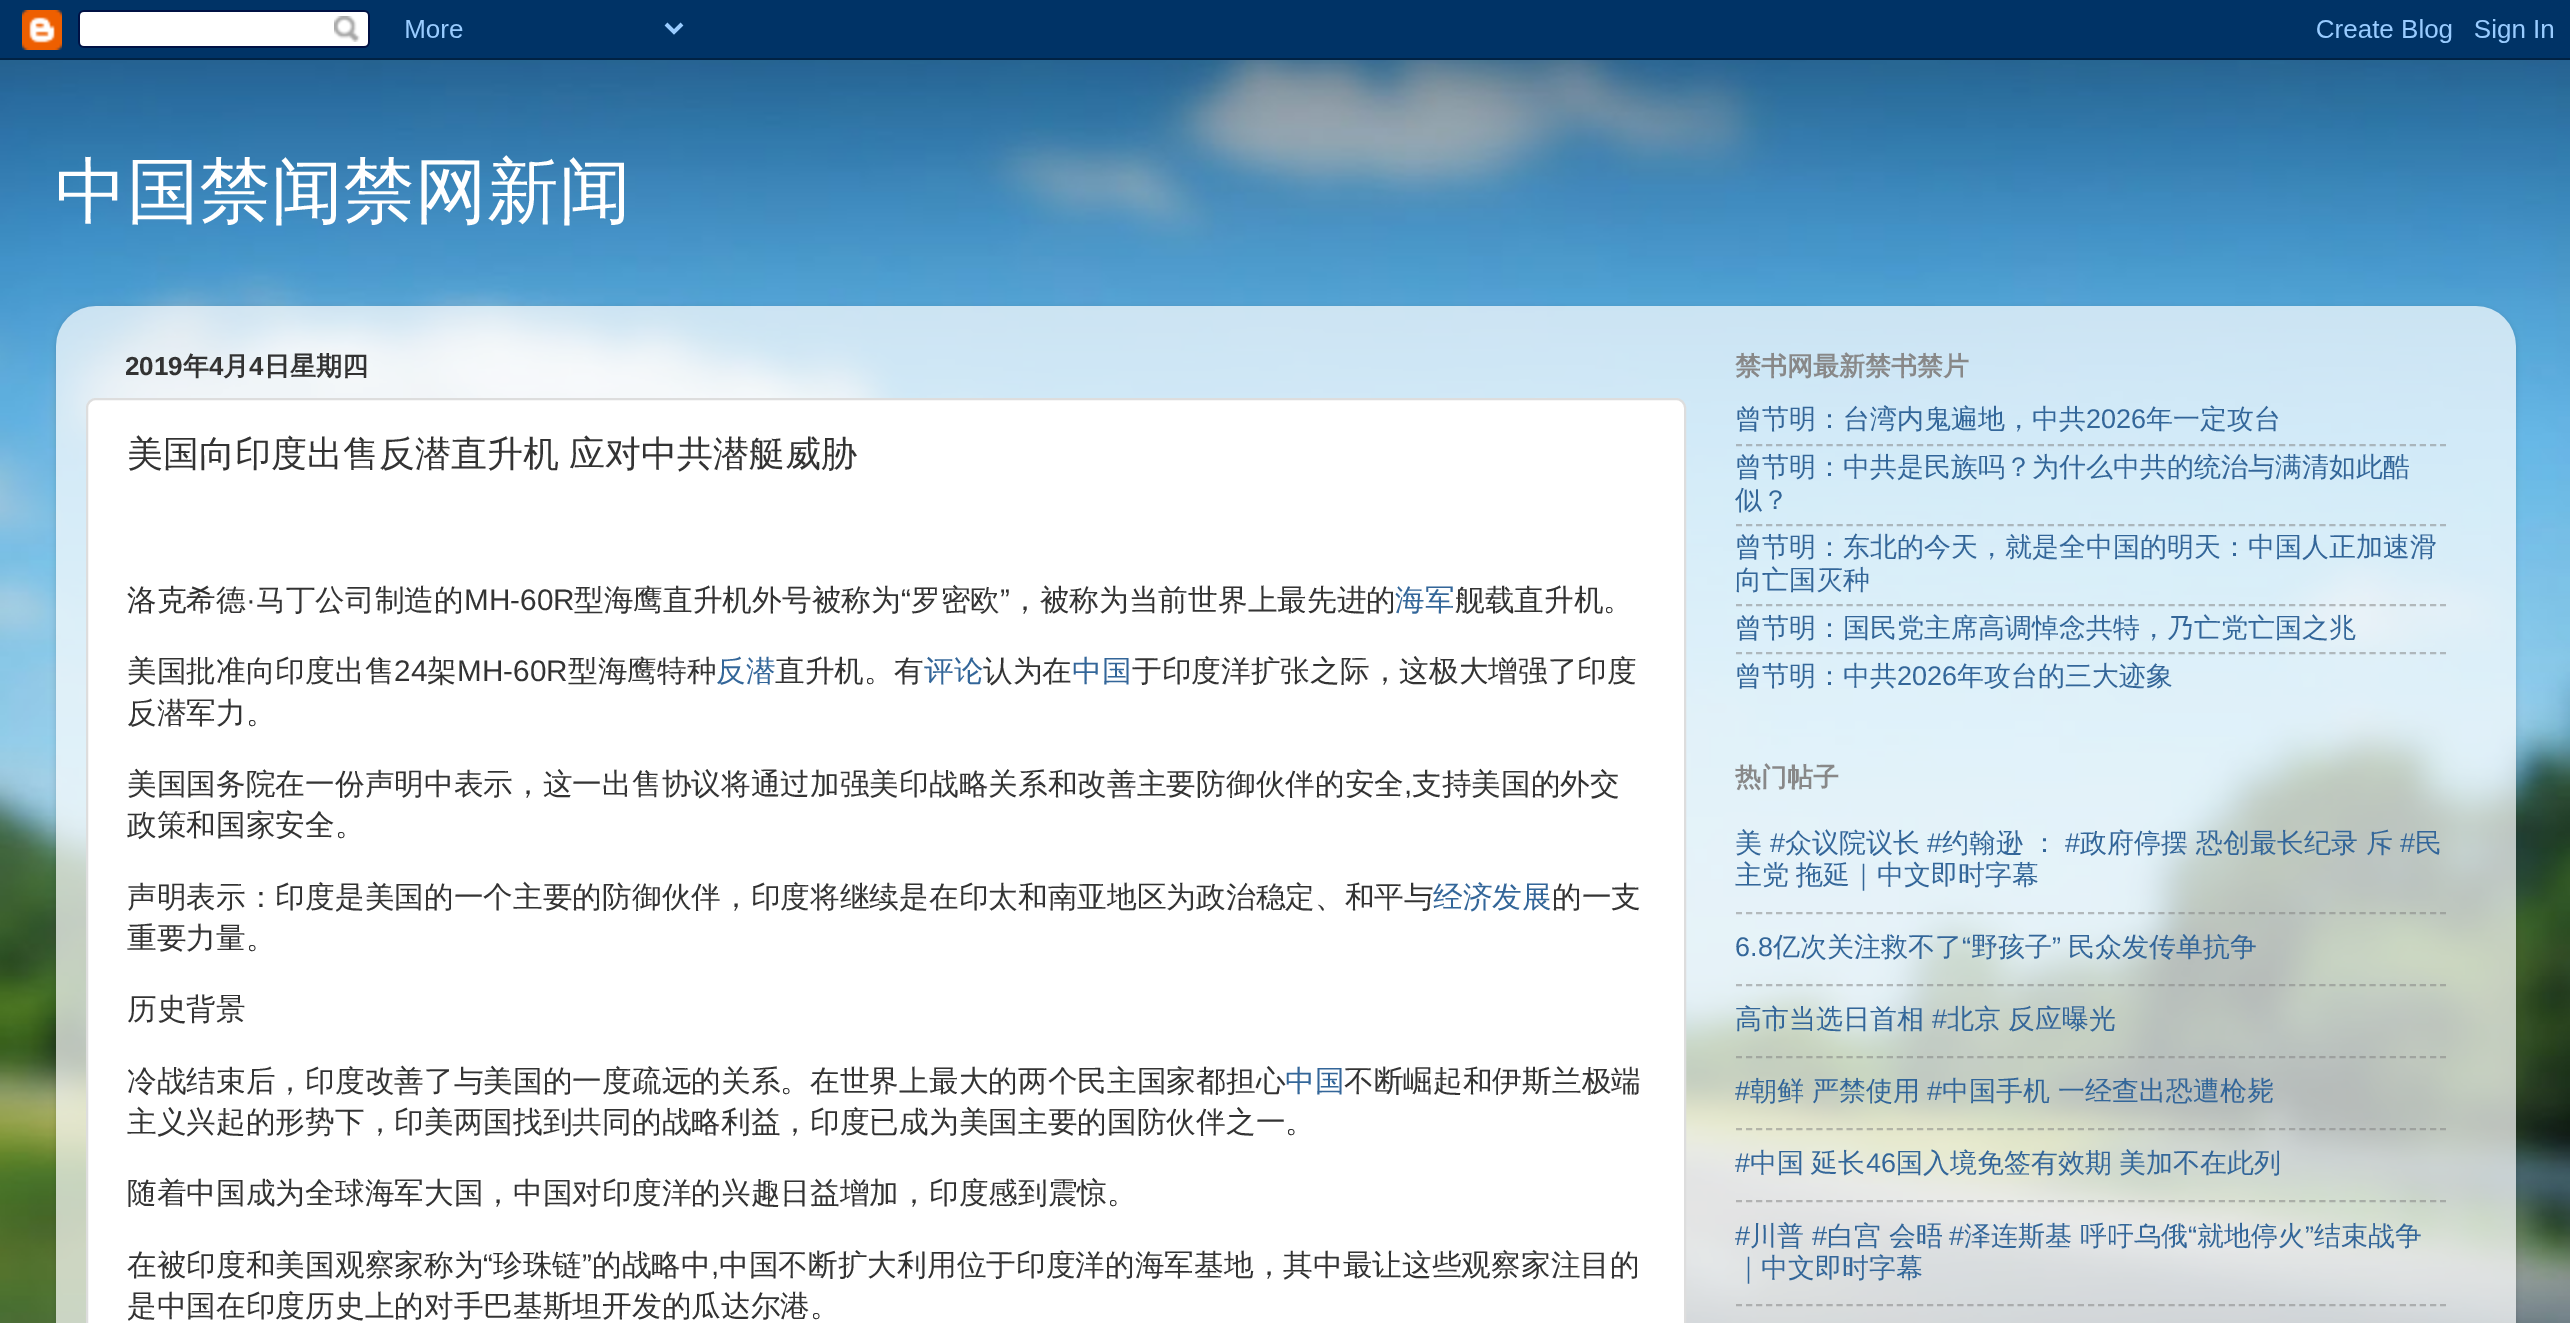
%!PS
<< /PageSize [2570 1323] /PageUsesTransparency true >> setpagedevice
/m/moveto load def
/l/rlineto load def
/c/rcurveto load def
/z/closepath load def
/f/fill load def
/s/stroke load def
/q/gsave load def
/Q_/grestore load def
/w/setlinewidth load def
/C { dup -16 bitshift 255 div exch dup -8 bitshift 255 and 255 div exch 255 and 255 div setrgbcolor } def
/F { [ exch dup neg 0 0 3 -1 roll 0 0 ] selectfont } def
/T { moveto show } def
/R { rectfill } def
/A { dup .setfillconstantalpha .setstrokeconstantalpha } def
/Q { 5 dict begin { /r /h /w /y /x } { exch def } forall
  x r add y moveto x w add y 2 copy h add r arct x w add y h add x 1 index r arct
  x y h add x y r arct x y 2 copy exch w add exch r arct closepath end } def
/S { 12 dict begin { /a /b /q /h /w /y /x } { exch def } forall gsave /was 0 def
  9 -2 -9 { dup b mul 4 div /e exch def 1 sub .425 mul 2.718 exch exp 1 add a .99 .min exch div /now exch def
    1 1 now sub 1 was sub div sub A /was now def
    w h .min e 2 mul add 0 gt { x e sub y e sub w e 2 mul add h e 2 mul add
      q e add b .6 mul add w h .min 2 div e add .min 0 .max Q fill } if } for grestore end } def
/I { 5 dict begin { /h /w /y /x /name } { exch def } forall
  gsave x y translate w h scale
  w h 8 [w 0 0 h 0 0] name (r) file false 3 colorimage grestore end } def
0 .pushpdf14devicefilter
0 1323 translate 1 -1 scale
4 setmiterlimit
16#FFFFFF C
0 0 2570 1323 R
(1.rgb) 0 60 2570 1263 I
(2.rgb) 0 0 2570 60 I
/WenQuanYiZenHei-Medium 72 F
(中国禁闻禁网新闻) 55 216 T
q
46 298 m 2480 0 l 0 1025 l -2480 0 l z 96 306 m 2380 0 l 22 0 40 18 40 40 c 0 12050 l -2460 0 l 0 -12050 l 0 -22 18 -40 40 -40 c z eoclip newpath
16#000000 C
56 308 2460 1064 40 3 .15 S
Q_
(3.rgb) 56 306 2460 1017 I
/LiberationSans-Bold 26 F
16#333333 C
(2019) 125 375 T
/WenQuanYiZenHei-Bold 26 F
(年) 183 375 T
/LiberationSans-Bold 26 F
(4) 209 375 T
/WenQuanYiZenHei-Bold 26 F
(月) 223 375 T
/LiberationSans-Bold 26 F
(4) 249 375 T
/WenQuanYiZenHei-Bold 26 F
(日星期四) 264 375 T
16#FFFFFF C
87 399 1598 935 9 Q q f Q_
16#DDDDDD C
2 w
s
/WenQuanYiZenHei-Medium 36 F
16#333333 C
127 466 m -1 0 32 (美国向印度出售反潜直升机 应对中共潜艇威胁) widthshow
/WenQuanYiZenHei-Medium 29.7 F
(洛克希德) 127 610 T
(马丁公司制造的) 256 610 T
/LiberationSans-Regular 29.7 F
(MH-60R) 464 610 T
/WenQuanYiZenHei-Medium 29.7 F
(型海鹰直升机外号被称为) 574 610 T
/LiberationSans-Regular 29.7 F
(“) 901 610 T
/WenQuanYiZenHei-Medium 29.7 F
(罗密欧) 911 610 T
/LiberationSans-Regular 29.7 F
(”) 1000 610 T
/WenQuanYiZenHei-Medium 29.7 F
(，被称为当前世界上最先进的) 1010 610 T
16#336699 C
(海军) 1395 610 T
16#333333 C
(舰载直升机。) 1455 610 T
/LiberationSans-Regular 29.7 F
(·) 246 610 T
/WenQuanYiZenHei-Medium 29.7 F
(美国批准向印度出售) 127 681 T
/LiberationSans-Regular 29.7 F
(24) 394 681 T
/WenQuanYiZenHei-Medium 29.7 F
(架) 427 681 T
/LiberationSans-Regular 29.7 F
(MH-60R) 457 681 T
/WenQuanYiZenHei-Medium 29.7 F
(型海鹰特种) 568 681 T
16#336699 C
(反潜) 716 681 T
16#333333 C
(直升机。有) 775 681 T
16#336699 C
(评论) 924 681 T
16#333333 C
(认为在) 983 681 T
16#336699 C
(中国) 1072 681 T
16#333333 C
(于印度洋扩张之际，这极大增强了印度) 1132 681 T
(反潜军力。) 127 723 T
(美国国务院在一份声明中表示，这一出售协议将通过加强美印战略关系和改善主要防御伙伴的安全) 127 794 T
/LiberationSans-Regular 29.7 F
(,) 1404 794 T
/WenQuanYiZenHei-Medium 29.7 F
(支持美国的外交) 1412 794 T
(政策和国家安全。) 127 835 T
(声明表示：印度是美国的一个主要的防御伙伴，印度将继续是在印太和南亚地区为政治稳定、和平与) 127 907 T
16#336699 C
(经济发展) 1433 907 T
16#333333 C
(的一支) 1552 907 T
(重要力量。) 127 948 T
(历史背景) 127 1019 T
(冷战结束后，印度改善了与美国的一度疏远的关系。在世界上最大的两个民主国家都担心) 127 1091 T
16#336699 C
(中国) 1285 1091 T
16#333333 C
(不断崛起和伊斯兰极端) 1344 1091 T
(主义兴起的形势下，印美两国找到共同的战略利益，印度已成为美国主要的国防伙伴之一。) 127 1132 T
(随着中国成为全球海军大国，中国对印度洋的兴趣日益增加，印度感到震惊。) 127 1203 T
(在被印度和美国观察家称为) 127 1275 T
/LiberationSans-Regular 29.7 F
(“) 483 1275 T
/WenQuanYiZenHei-Medium 29.7 F
(珍珠链) 493 1275 T
/LiberationSans-Regular 29.7 F
(”) 582 1275 T
/WenQuanYiZenHei-Medium 29.7 F
(的战略中) 592 1275 T
(中国不断扩大利用位于印度洋的海军基地，其中最让这些观察家注目的) 719 1275 T
/LiberationSans-Regular 29.7 F
(,) 711 1275 T
/WenQuanYiZenHei-Medium 29.7 F
(是中国在印度历史上的对手巴基斯坦开发的瓜达尔港。) 127 1316 T
/WenQuanYiZenHei-Bold 26 F
16#888888 C
(禁书网最新禁书禁片) 1735 375 T
/WenQuanYiZenHei-Medium 27 F
16#336699 C
(曾节明：台湾内鬼遍地，中共) 1735 428 T
/LiberationSans-Regular 27 F
(2026) 2086 428 T
/WenQuanYiZenHei-Medium 27 F
(年一定攻台) 2146 428 T
16#A9B5BC C
[6 4.06] 0 setdash
1736 445 m 710 0 l s
16#336699 C
(曾节明：中共是民族吗？为什么中共的统治与满清如此酷) 1735 476 T
(似？) 1735 509 T
16#ABB6BC C
1736 525 m 710 0 l s
16#336699 C
(曾节明：东北的今天，就是全中国的明天：中国人正加速滑) 1735 556 T
(向亡国灭种) 1735 589 T
0.5 A
16#808080 C
1736 605 m 710 0 l s
1 A
16#336699 C
(曾节明：国民党主席高调悼念共特，乃亡党亡国之兆) 1735 637 T
0.5 A
16#808080 C
1736 653 m 710 0 l s
1 A
16#336699 C
(曾节明：中共) 1735 685 T
/LiberationSans-Regular 27 F
(2026) 1897 685 T
/WenQuanYiZenHei-Medium 27 F
(年攻台的三大迹象) 1957 685 T
/WenQuanYiZenHei-Bold 26 F
16#888888 C
(热门帖子) 1735 786 T
/WenQuanYiZenHei-Medium 27 F
16#336699 C
(美) 1735 852 T
/LiberationSans-Regular 27 F
(#) 1770 852 T
/WenQuanYiZenHei-Medium 27 F
(众议院议长) 1785 852 T
/LiberationSans-Regular 27 F
(#) 1927 852 T
/WenQuanYiZenHei-Medium 27 F
(约翰逊 ：) 1942 852 T
/LiberationSans-Regular 27 F
(#) 2065 852 T
/WenQuanYiZenHei-Medium 27 F
(政府停摆 恐创最长纪录 斥) 2080 852 T
/LiberationSans-Regular 27 F
(#) 2400 852 T
/WenQuanYiZenHei-Medium 27 F
(民) 2415 852 T
1735 884 m -1 0 32 (主党 拖延｜中文即时字幕) widthshow
0.5 A
16#808080 C
1736 913 m 710 0 l s
/LiberationSans-Regular 27 F
1 A
16#336699 C
(6.8) 1735 956 T
/WenQuanYiZenHei-Medium 27 F
(亿次关注救不了) 1773 956 T
/LiberationSans-Regular 27 F
(“) 1962 956 T
/WenQuanYiZenHei-Medium 27 F
(野孩子) 1971 956 T
/LiberationSans-Regular 27 F
(”) 2052 956 T
/WenQuanYiZenHei-Medium 27 F
(民众发传单抗争) 2068 956 T
0.5 A
16#808080 C
1736 985 m 710 0 l s
1 A
16#336699 C
(高市当选日首相) 1735 1028 T
/LiberationSans-Regular 27 F
(#) 1932 1028 T
/WenQuanYiZenHei-Medium 27 F
1947 1028 m -1 0 32 (北京 反应曝光) widthshow
0.5 A
16#808080 C
1736 1057 m 710 0 l s
/LiberationSans-Regular 27 F
1 A
16#336699 C
(#) 1735 1100 T
/WenQuanYiZenHei-Medium 27 F
(朝鲜 严禁使用) 1750 1100 T
/LiberationSans-Regular 27 F
(#) 1927 1100 T
/WenQuanYiZenHei-Medium 27 F
(中国手机) 1942 1100 T
(一经查出恐遭枪毙) 2058 1100 T
0.5 A
16#808080 C
1736 1129 m 710 0 l s
/LiberationSans-Regular 27 F
1 A
16#336699 C
(#) 1735 1172 T
/WenQuanYiZenHei-Medium 27 F
1750 1172 m -1 0 32 (中国 延长) widthshow
/LiberationSans-Regular 27 F
(46) 1866 1172 T
/WenQuanYiZenHei-Medium 27 F
1896 1172 m -1 0 32 (国入境免签有效期 美加不在此列) widthshow
0.5 A
16#808080 C
1736 1201 m 710 0 l s
/LiberationSans-Regular 27 F
1 A
16#336699 C
(#) 1735 1245 T
/WenQuanYiZenHei-Medium 27 F
(川普) 1750 1245 T
/LiberationSans-Regular 27 F
(#) 1812 1245 T
/WenQuanYiZenHei-Medium 27 F
(白宫 会晤) 1827 1245 T
/LiberationSans-Regular 27 F
(#) 1949 1245 T
/WenQuanYiZenHei-Medium 27 F
(泽连斯基) 1964 1245 T
(呼吁乌俄) 2080 1245 T
/LiberationSans-Regular 27 F
(“) 2188 1245 T
/WenQuanYiZenHei-Medium 27 F
(就地停火) 2197 1245 T
/LiberationSans-Regular 27 F
(”) 2305 1245 T
/WenQuanYiZenHei-Medium 27 F
(结束战争) 2314 1245 T
(｜中文即时字幕) 1735 1277 T
0.5 A
16#808080 C
1736 1305 m 710 0 l s
.poppdf14devicefilter showpage
